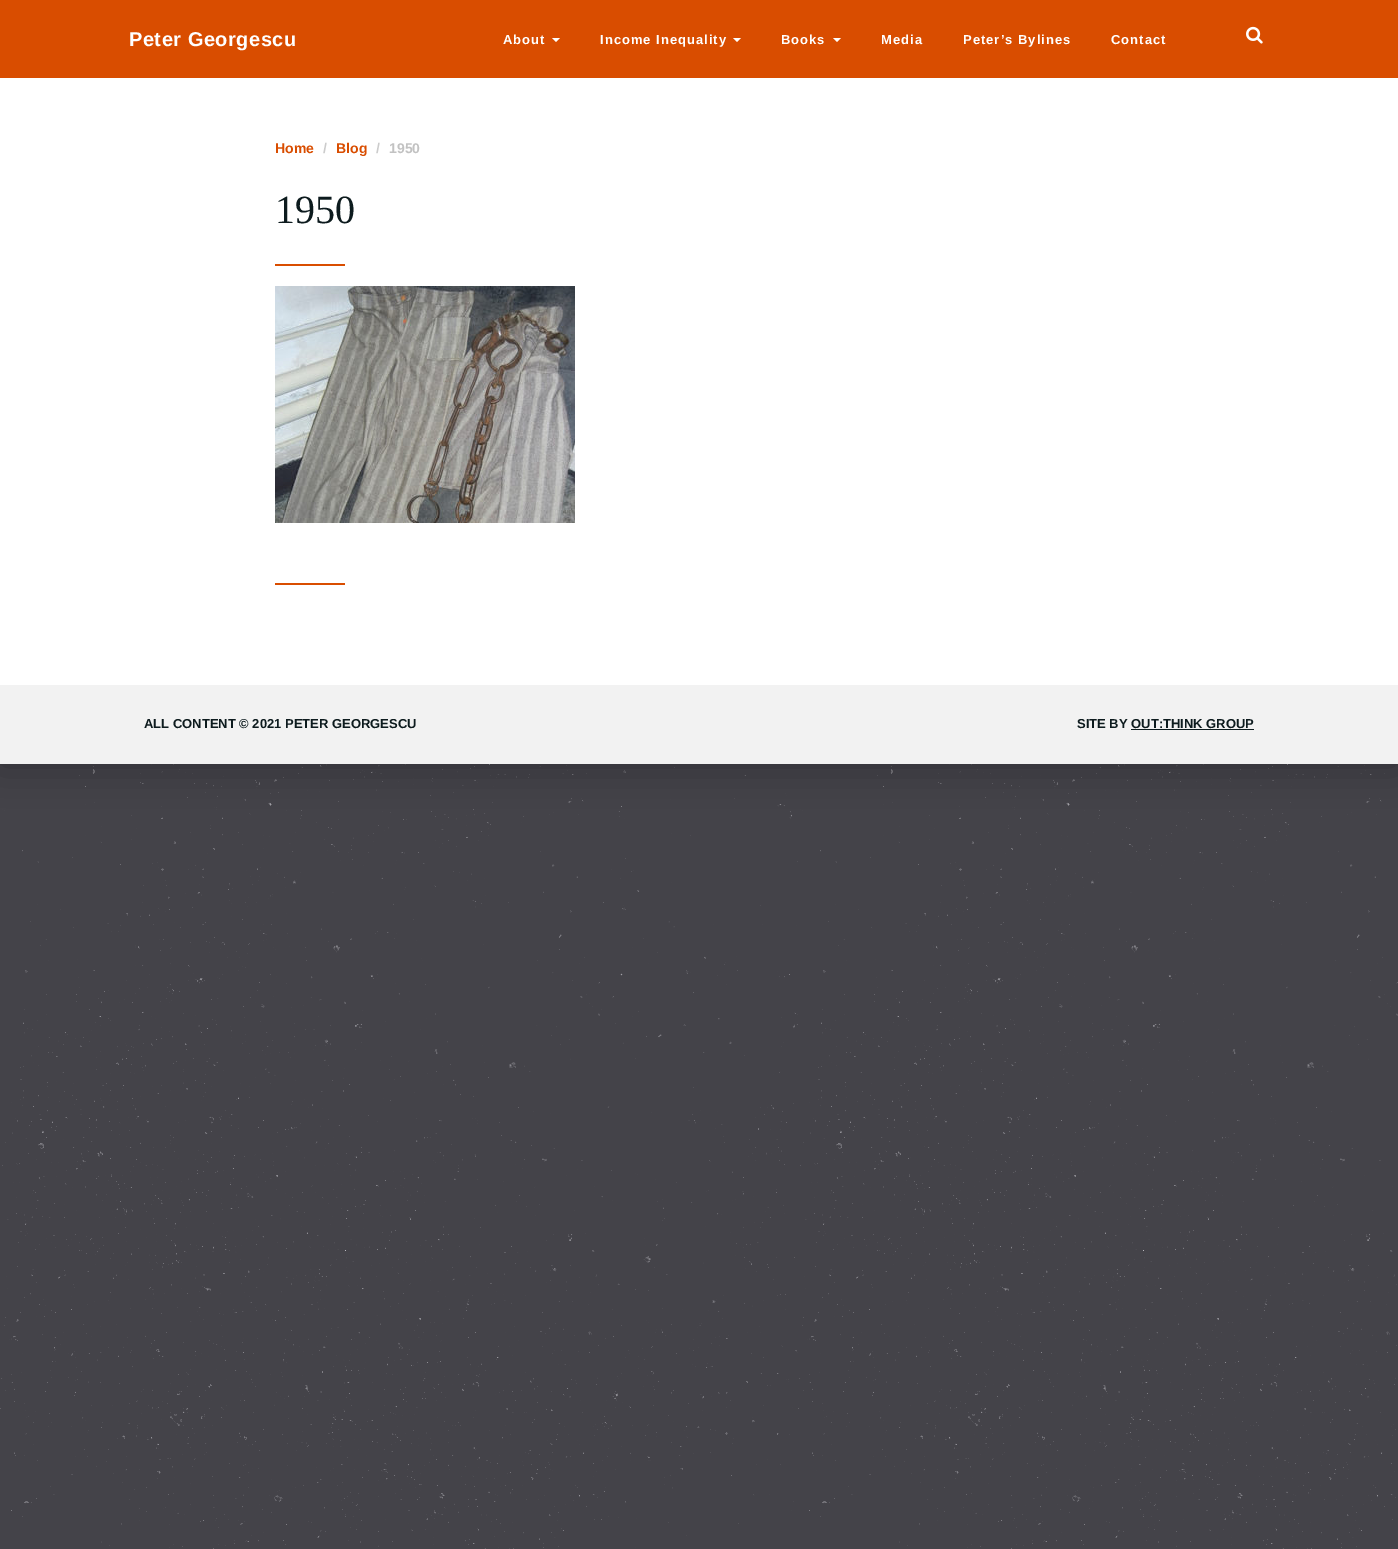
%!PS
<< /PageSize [1398 1549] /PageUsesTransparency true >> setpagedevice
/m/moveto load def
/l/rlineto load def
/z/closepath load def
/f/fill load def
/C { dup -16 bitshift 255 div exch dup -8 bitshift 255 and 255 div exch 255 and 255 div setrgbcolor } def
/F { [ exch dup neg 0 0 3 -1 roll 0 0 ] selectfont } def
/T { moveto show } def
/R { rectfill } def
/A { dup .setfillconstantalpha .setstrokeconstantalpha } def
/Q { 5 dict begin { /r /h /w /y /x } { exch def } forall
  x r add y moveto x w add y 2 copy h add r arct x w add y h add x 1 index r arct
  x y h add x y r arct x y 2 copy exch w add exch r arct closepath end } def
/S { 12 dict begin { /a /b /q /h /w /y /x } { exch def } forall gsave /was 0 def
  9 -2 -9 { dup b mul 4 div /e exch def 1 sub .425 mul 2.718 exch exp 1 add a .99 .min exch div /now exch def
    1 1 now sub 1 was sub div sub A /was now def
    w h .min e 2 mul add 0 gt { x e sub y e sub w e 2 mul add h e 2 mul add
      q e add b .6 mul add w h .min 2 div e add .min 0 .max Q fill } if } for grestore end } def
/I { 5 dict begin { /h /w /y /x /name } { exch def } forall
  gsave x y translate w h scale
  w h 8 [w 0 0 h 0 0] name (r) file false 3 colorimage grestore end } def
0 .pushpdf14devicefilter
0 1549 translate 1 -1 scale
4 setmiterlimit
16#FFFFFF C
0 0 1398 1549 R
(1.rgb) 0 764 1398 785 I
16#000000 C
0 0 1398 764 0 20 .3 S
16#FFFFFF C
0 78 1398 607 R
16#D94D00 C
0 0 1398 78 R
/LiberationSans-Bold 20 F
16#FFFFFF C
129 46 m .5 0 (Peter Georgescu) ashow
/LiberationSans-Bold 13 F
503 44 m 1 0 (About) ashow
552 38 m 8 0 l -4 4 l z f
600 44 m 1 0 (Income Inequality) ashow
733 38 m 8 0 l -4 4 l z f
781 44 m 1 0 (Books) ashow
833 38 m 8 0 l -4 4 l z f
881 44 m 1 0 (Media) ashow
963 44 m 1 0 (Peter’s Bylines) ashow
1111 44 m 1 0 (Contact) ashow
(2.rgb) 1246 26 17 18 I
/LiberationSans-Bold 14 F
16#D94D00 C
(Home) 275 153 T
16#CCCCCC C
(/) 323 153 T
16#D94D00 C
(Blog) 336 153 T
16#CCCCCC C
(/) 376 153 T
16#C2C2C2 C
(1950) 389 153 T
/LiberationSerif-Regular 40 F
16#0D1B1E C
(1950) 275 223 T
16#D94D00 C
275 264 70 2 R
(3.rgb) 275 286 300 237 I
275 583 70 2 R
16#F2F2F2 C
0 685 1398 79 R
/LiberationSans-Bold 13 F
16#0D1B1E C
(ALL CONTENT © 2021 PETER GEORGESCU) 144 728 T
(SITE BY OUT:THINK GROUP) 1077 728 T
1131 729 123 1 R
.poppdf14devicefilter showpage
